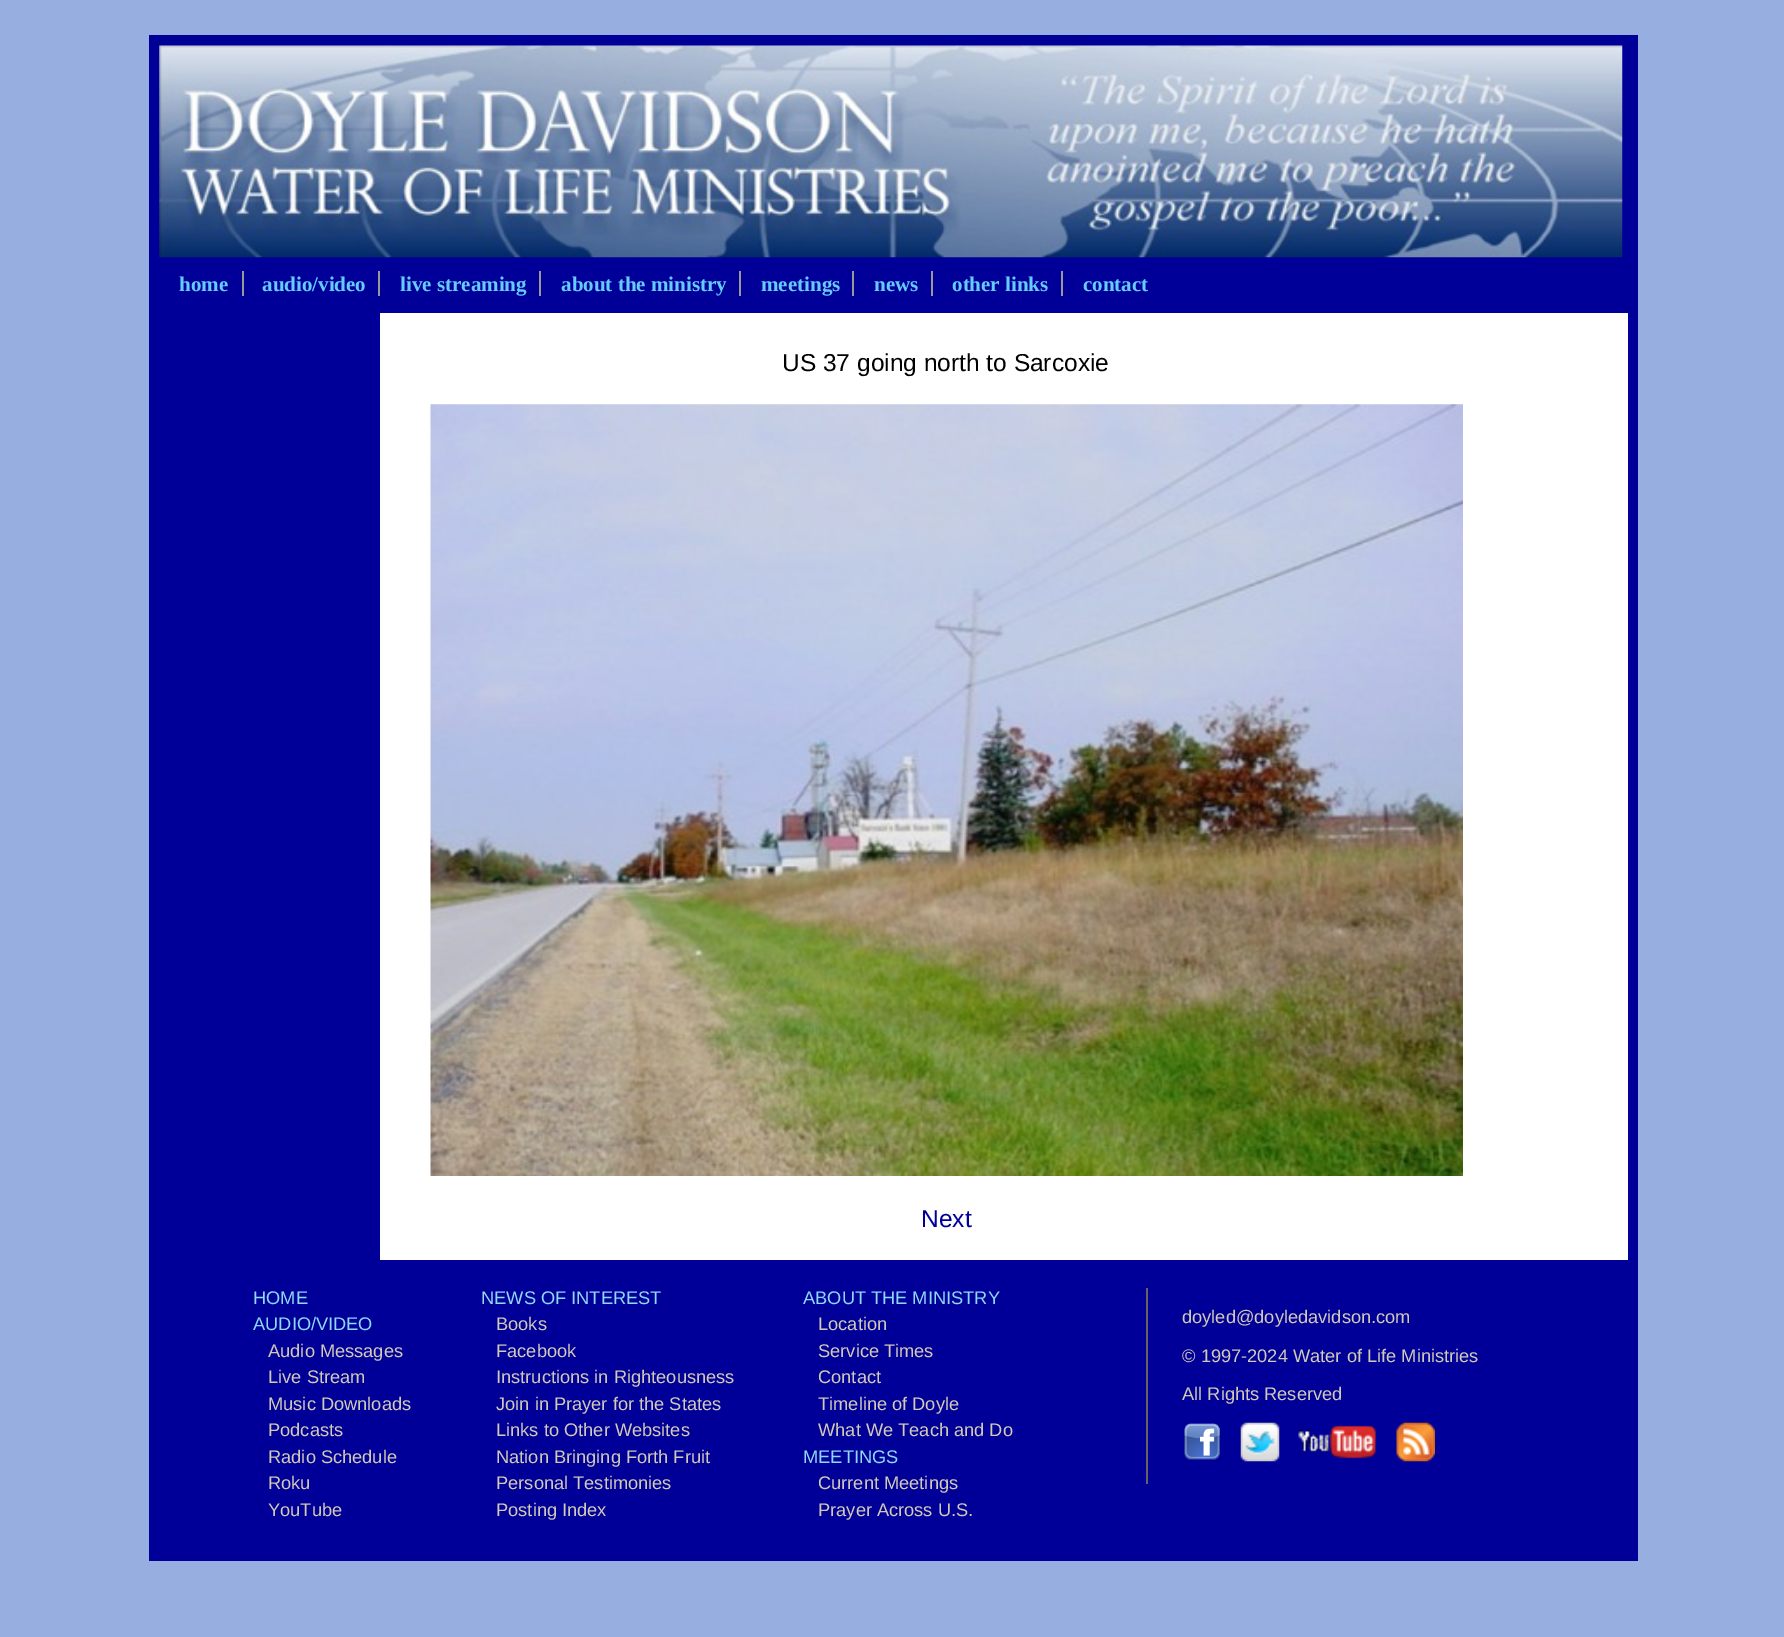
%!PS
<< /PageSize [1784 1637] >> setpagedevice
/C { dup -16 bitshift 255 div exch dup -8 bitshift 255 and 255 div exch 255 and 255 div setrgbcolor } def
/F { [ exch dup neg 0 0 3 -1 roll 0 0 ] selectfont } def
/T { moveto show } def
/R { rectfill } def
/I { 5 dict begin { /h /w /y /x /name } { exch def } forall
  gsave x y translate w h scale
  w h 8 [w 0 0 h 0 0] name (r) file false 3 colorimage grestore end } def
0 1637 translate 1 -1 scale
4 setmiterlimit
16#97AEE0 C
0 0 1784 1637 R
16#000099 C
149 35 1489 1526 R
(1.rgb) 159 45 1464 213 I
/LiberationSerif-Bold 21 F
16#66CCFF C
(home) 179 291 T
16#999999 C
242 271 2 25 R
16#66CCFF C
(audio/video) 262 291 T
16#999999 C
378 271 2 25 R
16#66CCFF C
(live streaming) 400 291 T
16#999999 C
539 271 2 25 R
16#66CCFF C
(about the ministry) 561 291 T
16#999999 C
739 271 2 25 R
16#66CCFF C
(meetings) 761 291 T
16#999999 C
852 271 2 25 R
16#66CCFF C
(news) 874 291 T
16#999999 C
931 271 2 25 R
16#66CCFF C
(other links) 952 291 T
16#999999 C
1061 271 2 25 R
16#66CCFF C
(contact) 1083 291 T
16#FFFFFF C
380 313 1248 947 R
/LiberationSans-Regular 24.5 F
16#000000 C
(US 37 going north to Sarcoxie) 782 371 T
(2.rgb) 430 404 1033 772 I
16#000099 C
(Next) 921 1227 T
/LiberationSans-Regular 18.25 F
16#8ED8F8 C
(HOME) 253 1304 T
(AUDIO/VIDEO) 253 1330 T
16#D2C9B7 C
(Audio Messages) 268 1357 T
(Live Stream) 268 1383 T
(Music Downloads) 268 1410 T
(Podcasts) 268 1436 T
(Radio Schedule) 268 1463 T
(Roku) 268 1489 T
(YouTube) 268 1516 T
16#8ED8F8 C
(NEWS OF INTEREST) 481 1304 T
16#D2C9B7 C
(Books) 496 1330 T
(Facebook) 496 1357 T
(Instructions in Righteousness) 496 1383 T
(Join in Prayer for the States) 496 1410 T
(Links to Other Websites) 496 1436 T
(Nation Bringing Forth Fruit) 496 1463 T
(Personal Testimonies) 496 1489 T
(Posting Index) 496 1516 T
16#8ED8F8 C
(ABOUT THE MINISTRY) 803 1304 T
16#D2C9B7 C
(Location) 818 1330 T
(Service Times) 818 1357 T
(Contact) 818 1383 T
(Timeline of Doyle) 818 1410 T
(What We Teach and Do) 818 1436 T
16#8ED8F8 C
(MEETINGS) 803 1463 T
16#D2C9B7 C
(Current Meetings) 818 1489 T
(Prayer Across U.S.) 818 1516 T
16#6C6263 C
1146 1288 2 196 R
16#D2C9B7 C
(doyled@doyledavidson.com) 1182 1323 T
(© 1997-2024 Water of Life Ministries) 1182 1362 T
(All Rights Reserved) 1182 1400 T
(3.rgb) 1184 1423 36 37 I
(4.rgb) 1240 1422 40 40 I
(5.rgb) 1298 1425 78 34 I
(6.rgb) 1396 1422 39 40 I
showpage
